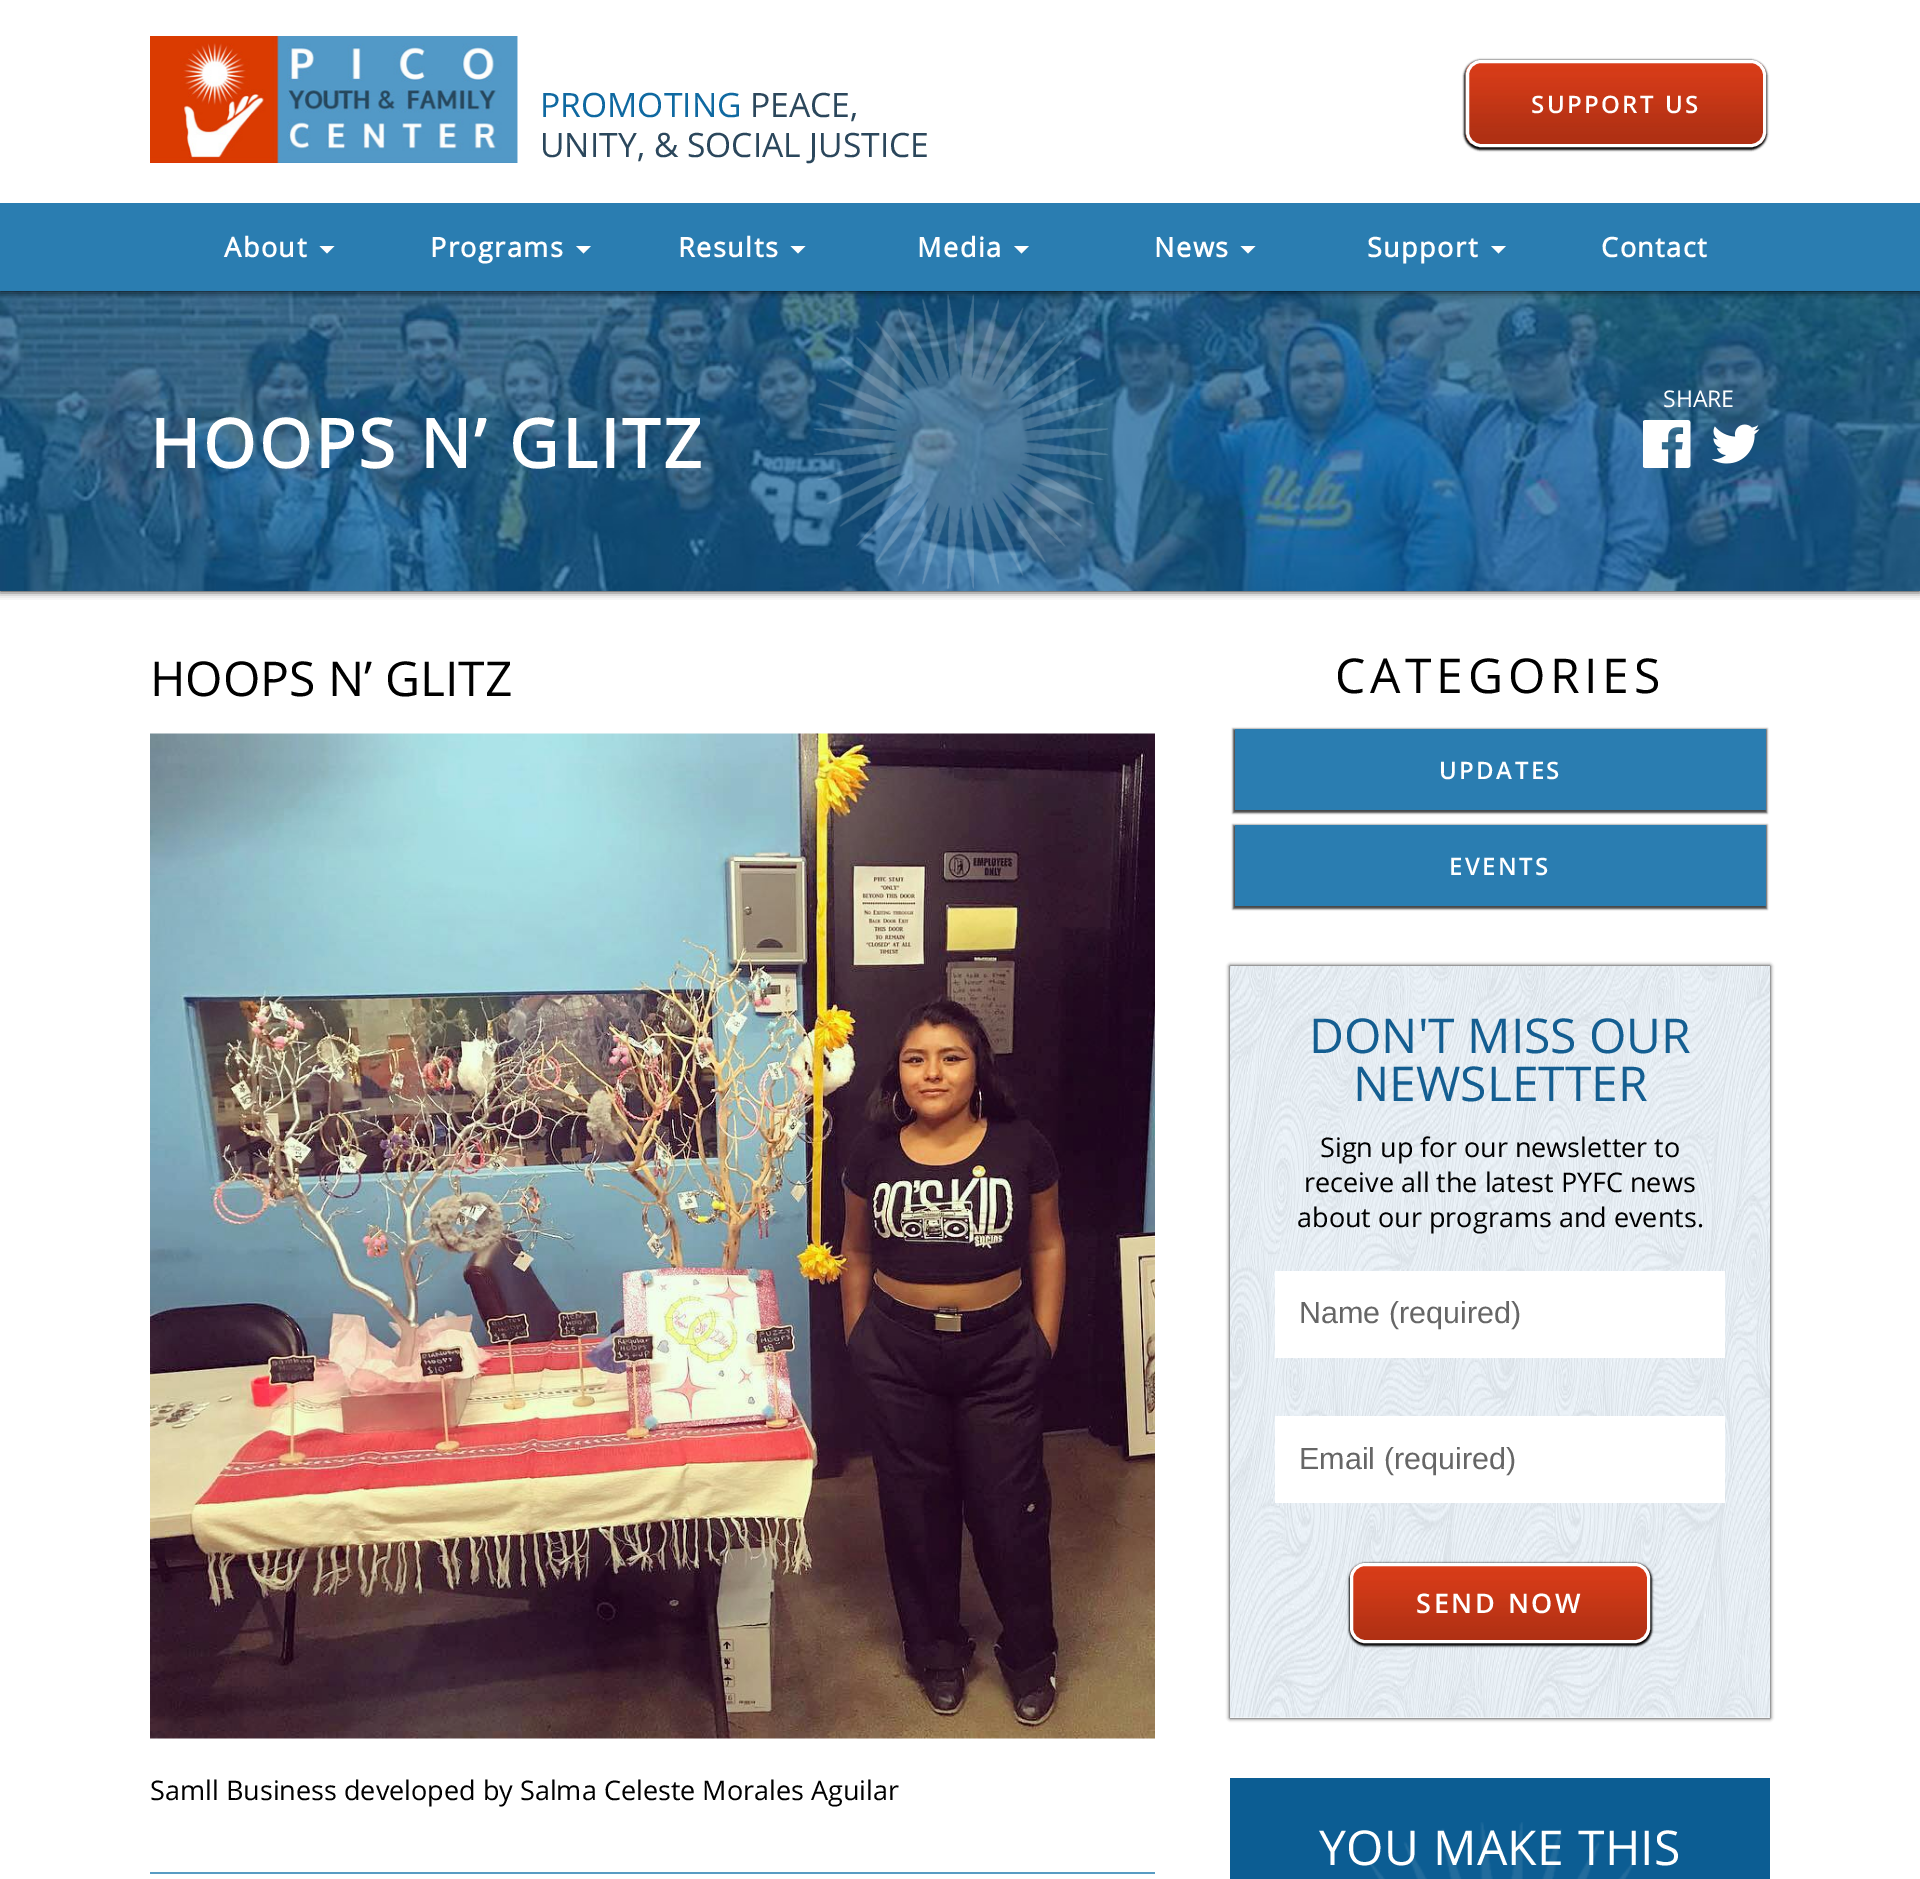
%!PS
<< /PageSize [1920 1879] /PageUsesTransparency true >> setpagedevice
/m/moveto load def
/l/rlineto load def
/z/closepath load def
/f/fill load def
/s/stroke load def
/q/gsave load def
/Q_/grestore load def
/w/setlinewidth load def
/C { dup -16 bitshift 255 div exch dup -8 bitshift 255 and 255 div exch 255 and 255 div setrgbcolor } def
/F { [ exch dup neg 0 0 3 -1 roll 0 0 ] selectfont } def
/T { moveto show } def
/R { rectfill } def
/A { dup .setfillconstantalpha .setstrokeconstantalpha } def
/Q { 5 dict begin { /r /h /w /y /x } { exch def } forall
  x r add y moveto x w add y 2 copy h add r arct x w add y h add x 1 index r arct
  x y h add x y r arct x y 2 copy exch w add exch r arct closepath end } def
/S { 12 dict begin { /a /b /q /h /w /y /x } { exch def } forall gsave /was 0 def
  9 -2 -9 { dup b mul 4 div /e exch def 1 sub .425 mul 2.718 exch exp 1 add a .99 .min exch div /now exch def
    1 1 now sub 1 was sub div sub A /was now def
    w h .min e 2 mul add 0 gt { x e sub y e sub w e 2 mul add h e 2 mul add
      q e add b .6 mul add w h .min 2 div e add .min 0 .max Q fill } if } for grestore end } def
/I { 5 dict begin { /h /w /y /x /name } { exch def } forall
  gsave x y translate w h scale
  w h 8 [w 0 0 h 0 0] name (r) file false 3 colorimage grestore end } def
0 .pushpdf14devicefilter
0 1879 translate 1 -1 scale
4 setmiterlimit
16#FFFFFF C
0 0 1920 1879 R
16#000000 C
0 291 1920 300 0 4 1 S
(3.rgb) 0 291 1920 300 I
(4.rgb) 813 294 295 295 I
q
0 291 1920 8 rectclip
0 0 1920 291 0 4 1 S
Q_
(1.rgb) 150 36 368 127 I
/OpenSans-Regular 33.6 F
16#0F69A1 C
(PROMOTING) 540 117 T
16#2B475C C
(PEACE,) 750 117 T
(UNITY, & SOCIAL JUSTICE) 540 157 T
16#000000 C
1464 60 303 90 17 1 1 S
(2.rgb) 1465 63 301 81 I
16#FFFFFF C
3 w
1467.5 61.5 297 84 13.5 Q s
/OpenSans-SemiBold 24 F
1531 113 m 2.4 0 (SUPPORT US) ashow
16#2A7DB1 C
0 203 1920 88 R
/OpenSans-Bold 27 F
16#FFFFFF C
224 257 m 1.5 0 (About) ashow
319.5 246 m 15 0 l -7.5 7.5 l z f
430 257 m 1.5 0 (Programs) ashow
576 246 m 15 0 l -7.5 7.5 l z f
678 257 m 1.5 0 (Results) ashow
790.5 246 m 15 0 l -7.5 7.5 l z f
917 257 m 1.5 0 (Media) ashow
1014 246 m 15 0 l -7.5 7.5 l z f
1154 257 m 1.5 0 (News) ashow
1240.5 246 m 15 0 l -7.5 7.5 l z f
1367 257 m 1.5 0 (Support) ashow
1491 246 m 15 0 l -7.5 7.5 l z f
1601 257 m 1.5 0 (Contact) ashow
/OpenSans-Regular 23 F
(SHARE) 1663 407 T
(5.rgb) 1643 420 48 48 I
(6.rgb) 1712 424 48 40 I
/OpenSans-Bold 67.25 F
150 468 m 3.4 0 (HOOPS N’ GLITZ) ashow
/OpenSans-Regular 48 F
16#000000 C
(HOOPS N’ GLITZ) 150 696 T
(7.rgb) 150 733 1005 1006 I
/OpenSans-Regular 27 F
(Samll Business developed by Salma Celeste Morales Aguilar) 150 1800 T
16#589BC3 C
150 1872 1005 2 R
/OpenSans-Regular 48 F
16#000000 C
1335 693 m 4.75 0 (CATEGORIES) ashow
16#444444 C
1233 729 534 84 0 1 1 S
16#2A7DB1 C
1235 729 531 81 R
/OpenSans-SemiBold 24 F
16#FFFFFF C
1439 779 m 2.4 0 (UPDATES) ashow
16#444444 C
1233 825 534 84 0 1 1 S
16#2A7DB1 C
1235 825 531 81 R
16#FFFFFF C
1449 875 m 2.4 0 (EVENTS) ashow
16#000000 C
1230 966 540 752 0 2 1 S
16#FFFFFF C
1230 1717 540 1 R
(8.rgb) 1230 966 540 752 I
/OpenSans-Regular 48 F
16#145E91 C
(DON'T MISS OUR) 1309 1053 T
(NEWSLETTER) 1353 1101 T
/OpenSans-Regular 27 F
16#000000 C
(Sign up for our newsletter to) 1320 1157 T
(receive all the latest PYFC news) 1304 1192 T
(about our programs and events.) 1297 1227 T
16#FFFFFF C
1275 1271 450 87 R
/LiberationSans-Regular 30.5 F
16#666666 C
(Name \(required\)) 1299 1323 T
16#FFFFFF C
1275 1416 450 87 R
16#666666 C
(Email \(required\)) 1299 1469 T
16#000000 C
1349 1563 303 83 17 1 1 S
(9.rgb) 1350 1566 300 77 I
16#FFFFFF C
1351.5 1564.5 297 77 13.5 Q s
/OpenSans-SemiBold 27 F
1416 1613 m 2.75 0 (SEND NOW) ashow
16#0C5D93 C
1230 1778 540 101 R
(10.rgb) 1369 1822 265 57 I
/OpenSans-Regular 48 F
16#FFFFFF C
1319 1865 m .5 0 (YOU MAKE THIS) ashow
.poppdf14devicefilter showpage
